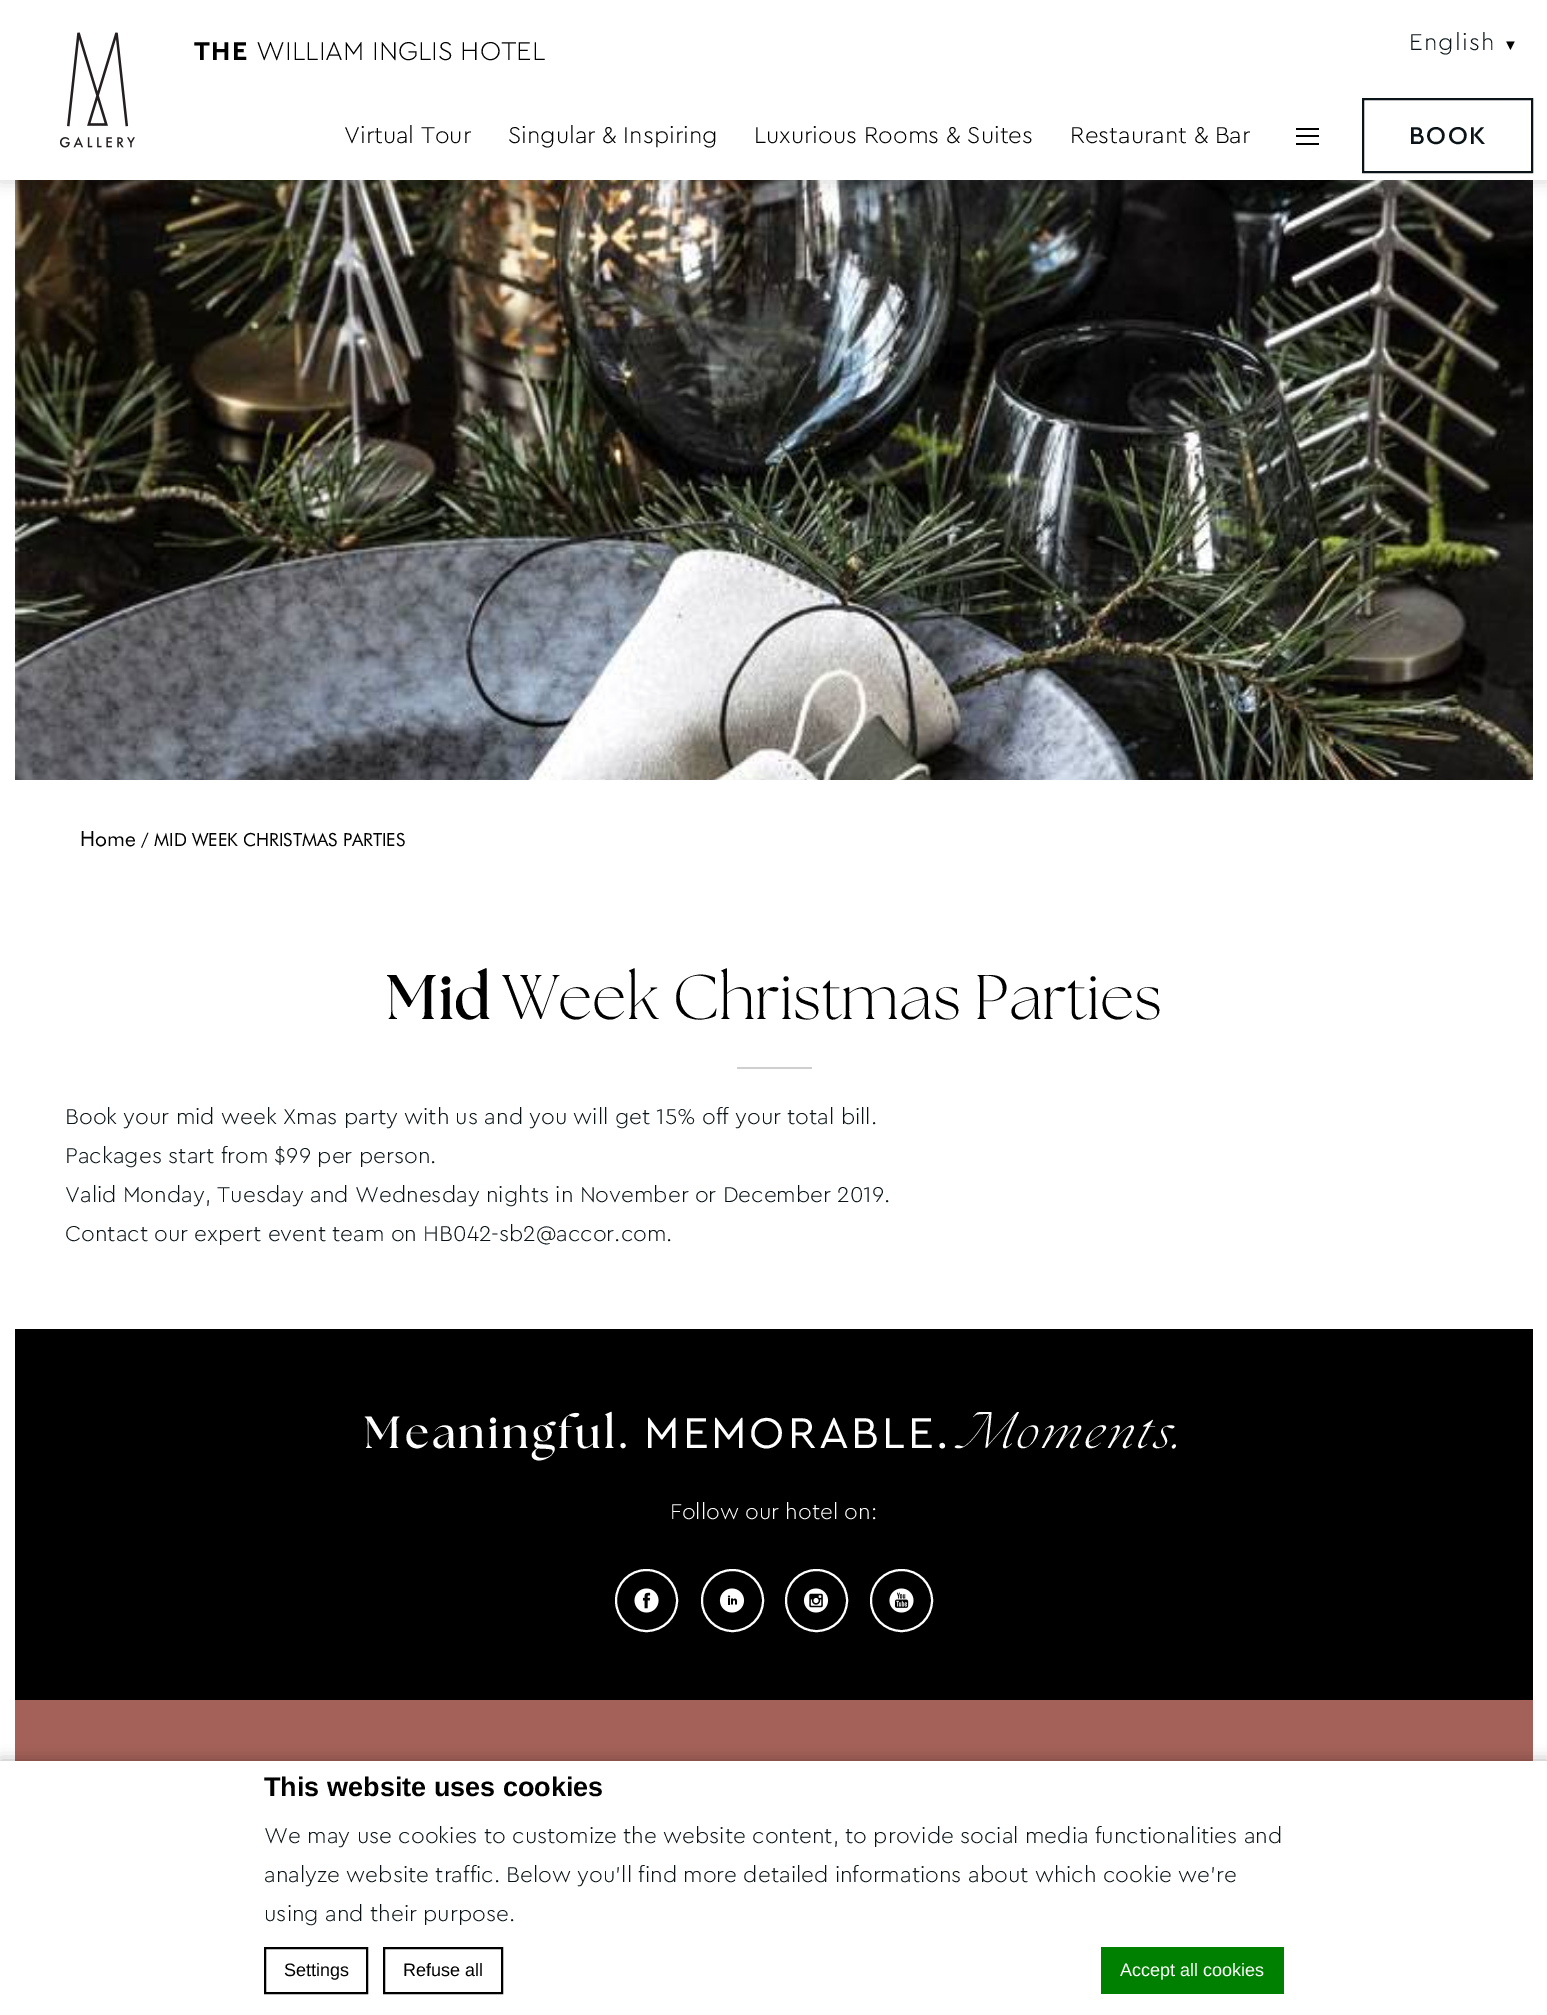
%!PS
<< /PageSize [1547 2015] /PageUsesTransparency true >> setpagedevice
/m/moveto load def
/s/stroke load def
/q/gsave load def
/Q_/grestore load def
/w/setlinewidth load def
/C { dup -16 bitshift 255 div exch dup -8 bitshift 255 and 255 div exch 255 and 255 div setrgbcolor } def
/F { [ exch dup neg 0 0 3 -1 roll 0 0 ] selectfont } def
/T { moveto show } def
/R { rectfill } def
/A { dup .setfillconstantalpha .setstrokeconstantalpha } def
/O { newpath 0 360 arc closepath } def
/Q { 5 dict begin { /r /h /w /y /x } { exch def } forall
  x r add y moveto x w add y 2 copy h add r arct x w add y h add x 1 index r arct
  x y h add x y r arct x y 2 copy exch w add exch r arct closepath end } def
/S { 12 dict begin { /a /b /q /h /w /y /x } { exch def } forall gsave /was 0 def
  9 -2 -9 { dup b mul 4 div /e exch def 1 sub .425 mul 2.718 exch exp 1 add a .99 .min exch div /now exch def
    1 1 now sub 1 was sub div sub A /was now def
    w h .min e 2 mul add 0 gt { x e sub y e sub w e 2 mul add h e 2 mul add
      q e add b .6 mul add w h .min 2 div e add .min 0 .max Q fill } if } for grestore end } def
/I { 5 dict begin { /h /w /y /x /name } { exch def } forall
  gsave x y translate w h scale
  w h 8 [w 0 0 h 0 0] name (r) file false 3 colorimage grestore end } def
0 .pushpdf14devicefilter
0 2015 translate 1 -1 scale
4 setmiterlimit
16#FFFFFF C
0 0 1547 2015 R
(2.rgb) 15 180 1518 600 I
16#000000 C
0 2 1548 180 0 7.5 .15 S
16#FFFFFF C
0 0 1547 180 R
(1.rgb) 60 32 75 116 I
q
194 30 375 39 rectclip
/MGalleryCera-Bold 27 F
16#000000 C
194 60 m 1.5 0 (THE) ashow
Q_
/MGalleryCera-Light 27 F
16#000000 C
(WILLIAM INGLIS HOTEL) 256 60 T
/MGalleryCera-Light 24 F
16#0A1317 C
1409 50 m 1.25 0 (English) ashow
/LiberationSans-Regular 15 F
16#000000 C
(▼) 1503 50 T
/MGalleryCera-Light 24 F
(Virtual Tour) 344 143 T
(Singular & Inspiring) 508 143 T
(Luxurious Rooms & Suites) 754 143 T
(Restaurant & Bar) 1070 143 T
1296 135 23 2 R
1296 128 23 2 R
1296 143 23 2 R
16#0A1317 C
2 w
1363 99 169 73 rectstroke
/MGalleryCera-Medium 25.5 F
1409 144 m 1.5 0 (BOOK) ashow
/Futura-Regular 21 F
16#000000 C
(Home) 80 846 T
/Futura-Regular 18 F
(/ MID WEEK CHRISTMAS PARTIES) 141 846 T
/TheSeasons-Bold 63 F
(Mid) 386 1019 T
/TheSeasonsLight-Light 63 F
(Week Christmas Parties) 503 1019 T
16#CFCFCF C
737 1067 75 2 R
/MGalleryCera-Light 22.5 F
16#0A1317 C
(Book your mid week Xmas party with us and you will get 15% off your total bill.) 65 1124 T
(Packages start from $99 per person.) 65 1163 T
(Valid Monday, Tuesday and Wednesday nights in November or December 2019.) 65 1202 T
(Contact our expert event team on HB042-sb2@accor.com.) 65 1241 T
16#000000 C
15 1329 1518 371 R
/TheSeasons-Bold 45 F
16#FFFFFF C
364 1448 m 3 0 (Meaningful.) ashow
/MGalleryCera-Regular 45 F
644 1448 m 3 0 (MEMORABLE.) ashow
/TheSeasonsLight-LightItalic 45 F
965 1448 m 3 0 (Moments.) ashow
/MGalleryCera-Light 22.5 F
(Follow our hotel on:) 670 1519 T
646.5 1600.5 30.5 O s
(3.rgb) 634 1588 25 25 I
732.5 1600.5 30.5 O s
(4.rgb) 719 1588 26 25 I
816.5 1600.5 30.5 O s
(5.rgb) 803 1588 26 25 I
901.5 1600.5 30.5 O s
(6.rgb) 889 1588 25 25 I
16#A36159 C
15 1700 1518 61 R
16#000000 C
0 1761 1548 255 0 7.5 .3 S
16#FFFFFF C
0 1761 1547 254 R
/LiberationSans-Bold 27 F
16#000000 C
(This website uses cookies) 264 1796 T
/MGalleryCera-Light 22.5 F
16#0A1317 C
(We may use cookies to customize the website content, to provide social media functionalities and) 264 1843 T
(analyze website traffic. Below you'll find more detailed informations about which cookie we're) 264 1882 T
(using and their purpose.) 264 1921 T
16#000000 C
265 1948 102 45 rectstroke
/LiberationSans-Regular 18 F
(Settings) 284 1976 T
384 1948 118 45 rectstroke
(Refuse all) 403 1976 T
16#008000 C
1101 1947 183 47 R
16#FFFFFF C
(Accept all cookies) 1120 1976 T
.poppdf14devicefilter showpage
